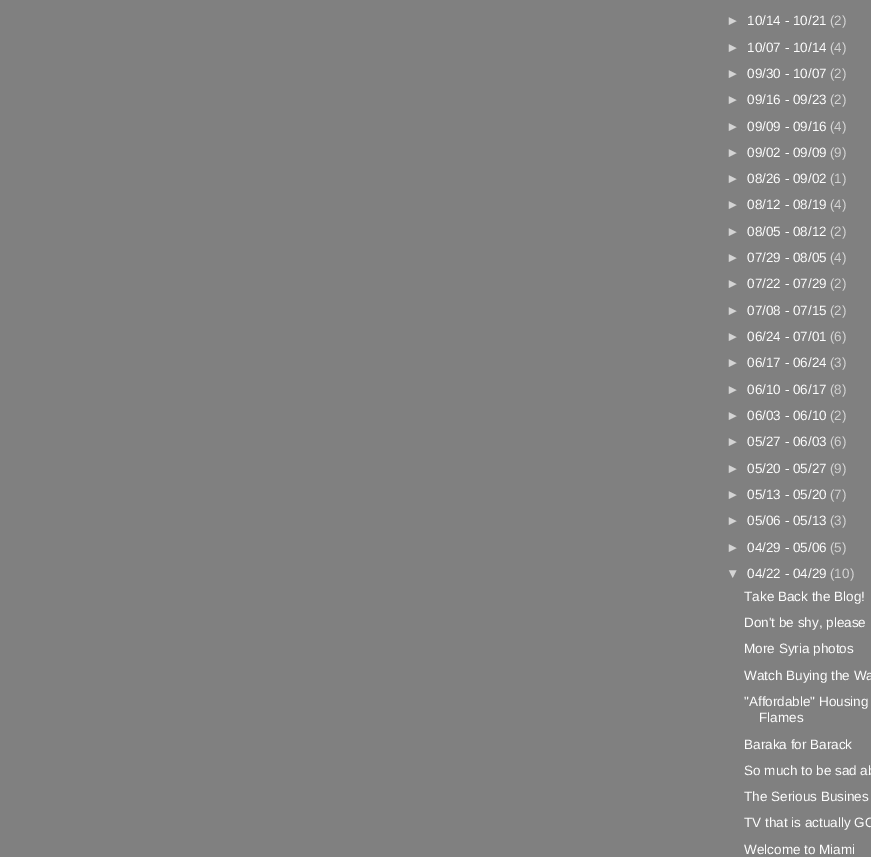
%!PS
<< /PageSize [871 857] >> setpagedevice
/C { dup -16 bitshift 255 div exch dup -8 bitshift 255 and 255 div exch 255 and 255 div setrgbcolor } def
/F { [ exch dup neg 0 0 3 -1 roll 0 0 ] selectfont } def
/T { moveto show } def
/R { rectfill } def
0 857 translate 1 -1 scale
4 setmiterlimit
16#808080 C
0 0 871 857 R
/LiberationSans-Regular 13.5 F
16#D4D4D4 C
(►) 726 25 T
16#FEFEFE C
(10/14 - 10/21) 747 25 T
16#D4D4D4 C
(\(2\)) 830 25 T
(►) 726 52 T
16#FEFEFE C
(10/07 - 10/14) 747 52 T
16#D4D4D4 C
(\(4\)) 830 52 T
(►) 726 78 T
16#FEFEFE C
(09/30 - 10/07) 747 78 T
16#D4D4D4 C
(\(2\)) 830 78 T
(►) 726 104 T
16#FEFEFE C
(09/16 - 09/23) 747 104 T
16#D4D4D4 C
(\(2\)) 830 104 T
(►) 726 131 T
16#FEFEFE C
(09/09 - 09/16) 747 131 T
16#D4D4D4 C
(\(4\)) 830 131 T
(►) 726 157 T
16#FEFEFE C
(09/02 - 09/09) 747 157 T
16#D4D4D4 C
(\(9\)) 830 157 T
(►) 726 183 T
16#FEFEFE C
(08/26 - 09/02) 747 183 T
16#D4D4D4 C
(\(1\)) 830 183 T
(►) 726 209 T
16#FEFEFE C
(08/12 - 08/19) 747 209 T
16#D4D4D4 C
(\(4\)) 830 209 T
(►) 726 236 T
16#FEFEFE C
(08/05 - 08/12) 747 236 T
16#D4D4D4 C
(\(2\)) 830 236 T
(►) 726 262 T
16#FEFEFE C
(07/29 - 08/05) 747 262 T
16#D4D4D4 C
(\(4\)) 830 262 T
(►) 726 288 T
16#FEFEFE C
(07/22 - 07/29) 747 288 T
16#D4D4D4 C
(\(2\)) 830 288 T
(►) 726 315 T
16#FEFEFE C
(07/08 - 07/15) 747 315 T
16#D4D4D4 C
(\(2\)) 830 315 T
(►) 726 341 T
16#FEFEFE C
(06/24 - 07/01) 747 341 T
16#D4D4D4 C
(\(6\)) 830 341 T
(►) 726 367 T
16#FEFEFE C
(06/17 - 06/24) 747 367 T
16#D4D4D4 C
(\(3\)) 830 367 T
(►) 726 394 T
16#FEFEFE C
(06/10 - 06/17) 747 394 T
16#D4D4D4 C
(\(8\)) 830 394 T
(►) 726 420 T
16#FEFEFE C
(06/03 - 06/10) 747 420 T
16#D4D4D4 C
(\(2\)) 830 420 T
(►) 726 446 T
16#FEFEFE C
(05/27 - 06/03) 747 446 T
16#D4D4D4 C
(\(6\)) 830 446 T
(►) 726 473 T
16#FEFEFE C
(05/20 - 05/27) 747 473 T
16#D4D4D4 C
(\(9\)) 830 473 T
(►) 726 499 T
16#FEFEFE C
(05/13 - 05/20) 747 499 T
16#D4D4D4 C
(\(7\)) 830 499 T
(►) 726 525 T
16#FEFEFE C
(05/06 - 05/13) 747 525 T
16#D4D4D4 C
(\(3\)) 830 525 T
(►) 726 552 T
16#FEFEFE C
(04/29 - 05/06) 747 552 T
16#D4D4D4 C
(\(5\)) 830 552 T
(▼) 726 578 T
16#FEFEFE C
(04/22 - 04/29) 747 578 T
16#D4D4D4 C
(\(10\)) 830 578 T
16#FEFEFE C
(Take Back the Blog!) 744 601 T
(Don't be shy, please) 744 627 T
(More Syria photos) 744 653 T
(Watch Buying the Wa) 744 680 T
("Affordable" Housing) 744 706 T
(Flames) 759 722 T
(Baraka for Barack) 744 749 T
(So much to be sad ab) 744 775 T
(The Serious Busines) 744 801 T
(TV that is actually GO) 744 827 T
(Welcome to Miami) 744 854 T
showpage
